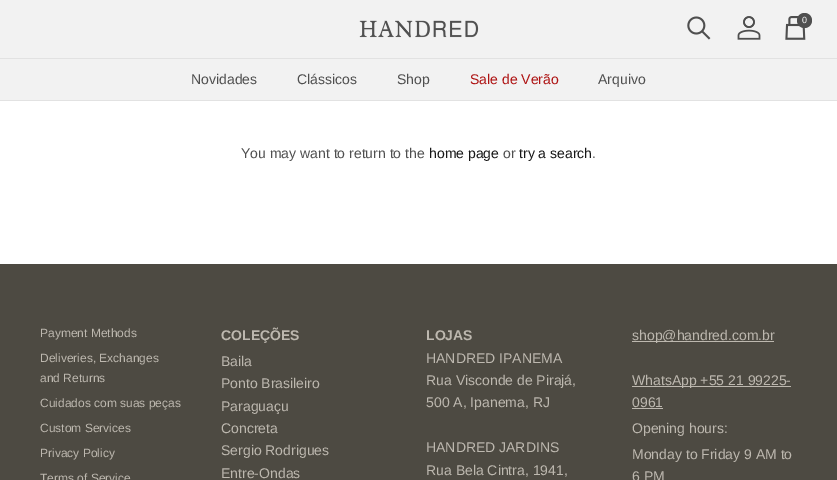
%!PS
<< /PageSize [837 480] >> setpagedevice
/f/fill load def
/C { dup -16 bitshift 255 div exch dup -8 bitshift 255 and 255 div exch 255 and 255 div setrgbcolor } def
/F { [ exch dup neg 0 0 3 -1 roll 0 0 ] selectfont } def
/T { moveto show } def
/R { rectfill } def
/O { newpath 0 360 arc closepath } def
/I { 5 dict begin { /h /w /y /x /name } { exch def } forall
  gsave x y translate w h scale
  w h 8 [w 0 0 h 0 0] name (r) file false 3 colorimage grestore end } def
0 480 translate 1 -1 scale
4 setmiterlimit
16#FFFFFF C
0 0 837 480 R
16#F2F2F2 C
0 0 837 58 R
16#E2E2E2 C
0 58 837 1 R
(1.rgb) 359 20 120 18 I
(2.rgb) 687 16 24 24 I
(3.rgb) 737 16 24 24 I
(4.rgb) 785 16 21 24 I
16#4F4F4F C
804.5 20.5 7.5 O f
/LiberationSans-Regular 9 F
16#F2F2F2 C
(0) 802 23 T
16#E2E2E2 C
0 100 837 1 R
16#F2F2F2 C
0 59 837 41 R
/LiberationSans-Regular 14 F
16#4F4F4F C
(Novidades) 191 84 T
(Clássicos) 297 84 T
(Shop) 397 84 T
16#AE1212 C
(Sale de Verão) 470 84 T
16#4F4F4F C
(Arquivo) 598 84 T
(You may want to return to the) 241 158 T
16#171717 C
(home page) 429 158 T
16#4F4F4F C
(or) 503 158 T
16#171717 C
(try a search) 519 158 T
16#4F4F4F C
(.) 592 158 T
16#4D4A42 C
0 264 837 216 R
/LiberationSans-Regular 12 F
16#BDB8AF C
(Payment Methods) 40 337 T
(Deliveries, Exchanges) 40 362 T
(and Returns) 40 382 T
(Cuidados com suas peças) 40 407 T
(Custom Services) 40 432 T
(Privacy Policy) 40 457 T
(Terms of Service) 40 482 T
/LiberationSans-Bold 14 F
(COLEÇÕES) 221 340 T
/LiberationSans-Regular 14 F
(Baila) 221 366 T
(Ponto Brasileiro) 221 388 T
(Paraguaçu) 221 411 T
(Concreta) 221 433 T
(Sergio Rodrigues) 221 455 T
(Entre-Ondas) 221 478 T
/LiberationSans-Bold 14 F
(LOJAS) 426 340 T
/LiberationSans-Regular 14 F
(HANDRED IPANEMA) 426 363 T
(Rua Visconde de Pirajá,) 426 385 T
(500 A, Ipanema, RJ) 426 407 T
(HANDRED JARDINS) 426 452 T
(Rua Bela Cintra, 1941,) 426 475 T
632 341 142 1 R
(shop@handred.com.br) 632 340 T
632 386 159 1 R
(WhatsApp +55 21 99225-) 632 385 T
(0961) 632 407 T
632 408 31 1 R
(Opening hours:) 632 433 T
(Monday to Friday 9 AM to) 632 459 T
(6 PM) 632 481 T
showpage
